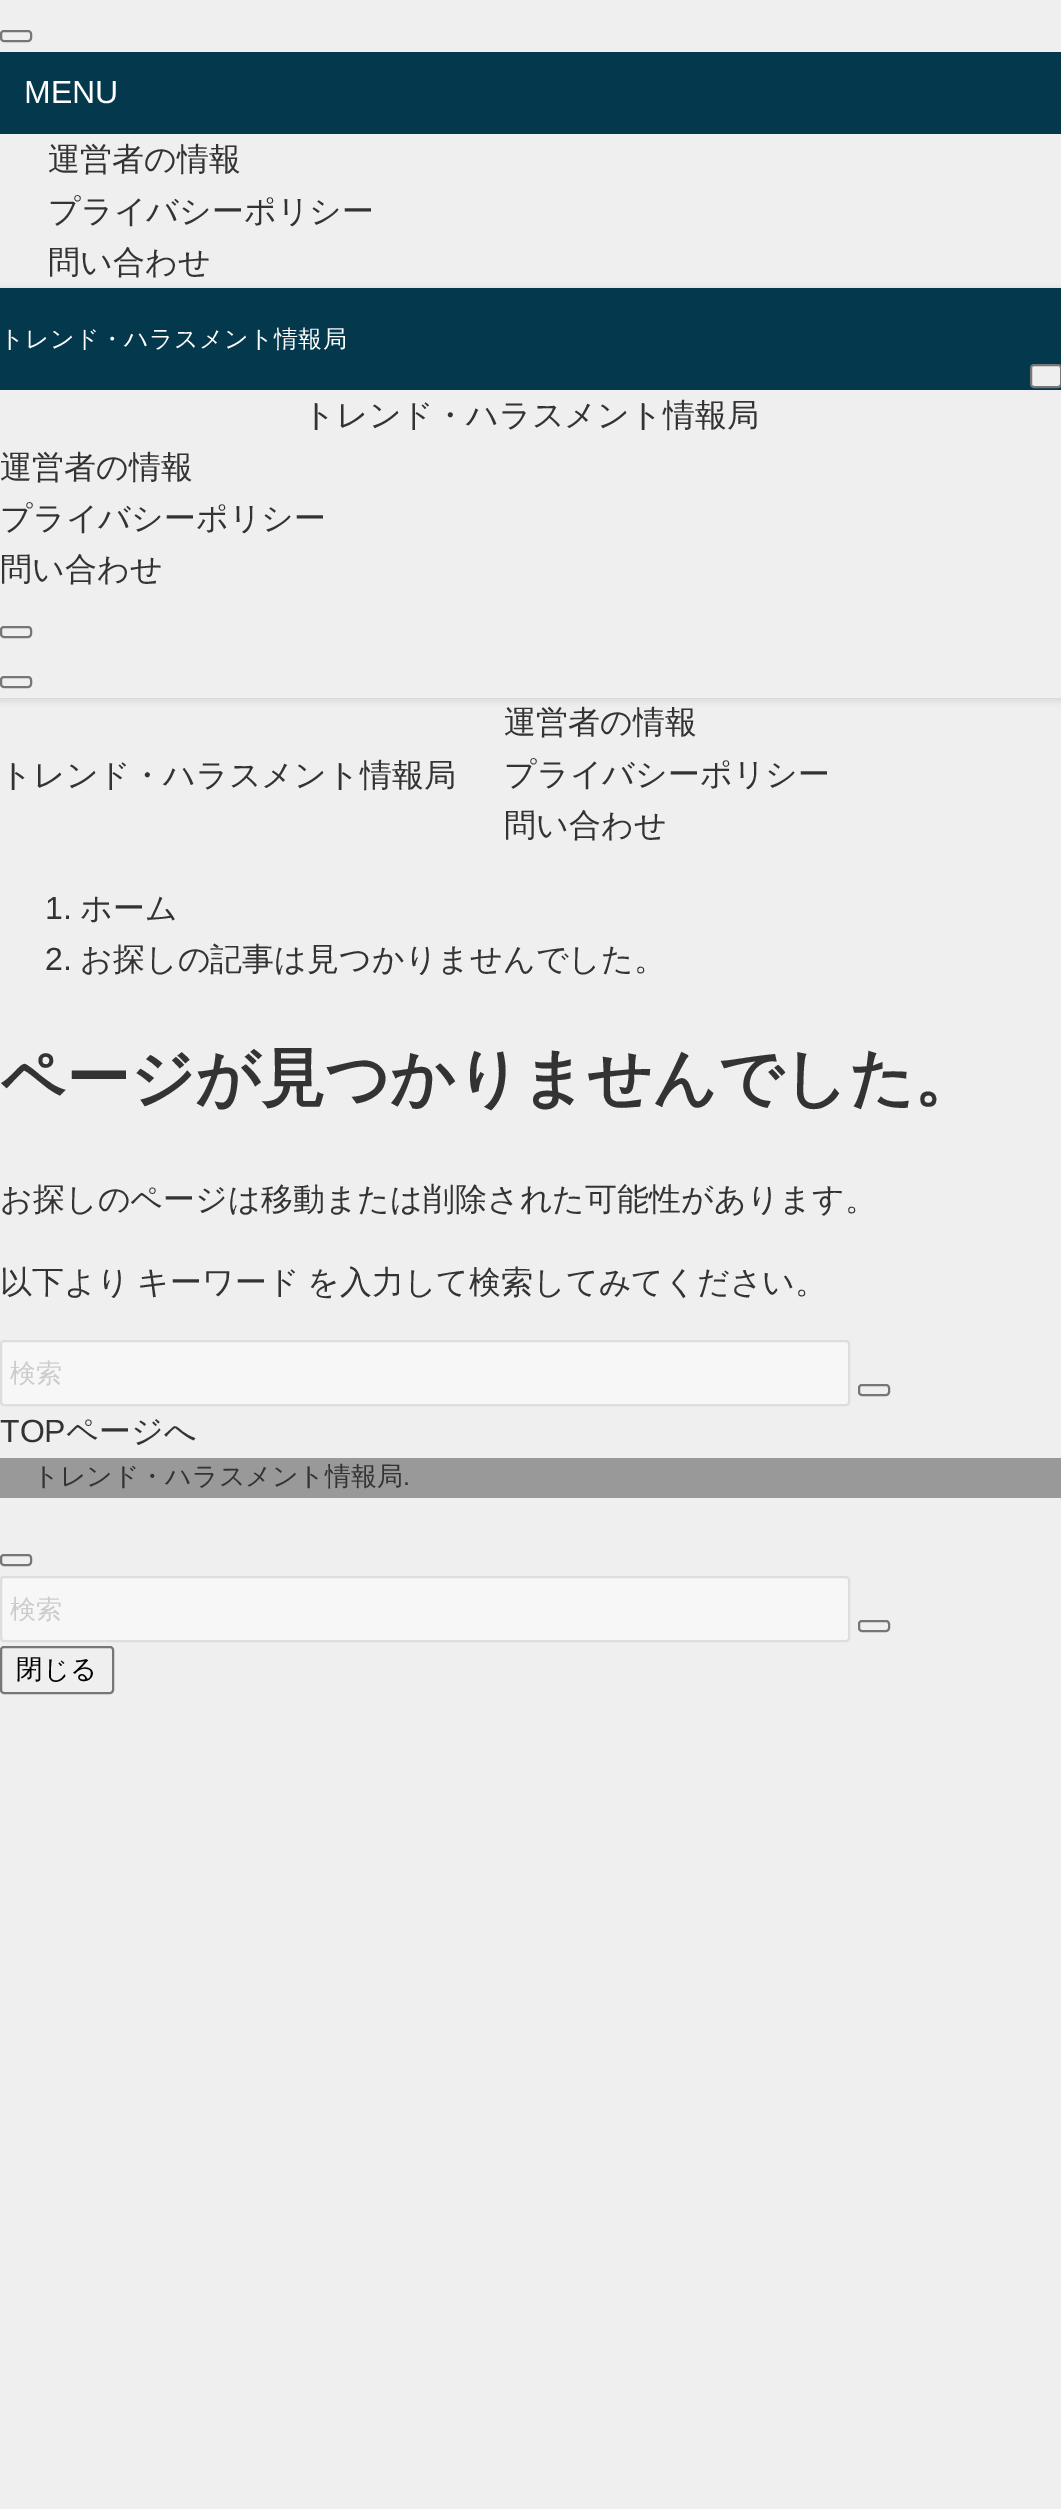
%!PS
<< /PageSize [1061 2509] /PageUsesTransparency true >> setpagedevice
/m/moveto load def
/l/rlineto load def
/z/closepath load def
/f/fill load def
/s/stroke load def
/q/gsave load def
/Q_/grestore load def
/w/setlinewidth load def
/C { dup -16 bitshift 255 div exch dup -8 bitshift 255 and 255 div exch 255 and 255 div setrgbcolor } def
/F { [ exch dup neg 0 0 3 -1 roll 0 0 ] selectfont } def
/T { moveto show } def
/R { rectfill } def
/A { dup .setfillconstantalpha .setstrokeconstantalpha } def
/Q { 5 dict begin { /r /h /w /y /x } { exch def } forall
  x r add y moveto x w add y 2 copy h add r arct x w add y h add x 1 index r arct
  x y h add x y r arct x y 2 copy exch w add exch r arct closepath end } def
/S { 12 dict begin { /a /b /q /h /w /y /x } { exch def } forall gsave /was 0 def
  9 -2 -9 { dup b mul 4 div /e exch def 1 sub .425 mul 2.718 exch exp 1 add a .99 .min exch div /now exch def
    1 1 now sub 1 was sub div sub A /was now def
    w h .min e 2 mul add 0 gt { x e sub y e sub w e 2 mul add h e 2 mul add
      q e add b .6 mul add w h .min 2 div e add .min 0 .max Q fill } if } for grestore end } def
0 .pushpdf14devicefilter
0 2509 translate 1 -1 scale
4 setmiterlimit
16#EFEFEF C
0 0 1061 2509 R
16#767676 C
2 w
1 31 30 10 3 Q s
16#04384C C
0 52 1061 82 R
/LiberationSans-Regular 32 F
16#FFFFFF C
(MENU) 24 103 T
/WenQuanYiZenHei-Medium 32 F
16#333333 C
(運営者の情報) 48 170 T
(プライバシーポリシー) 48 222 T
q
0 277 m 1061 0 l 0 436 l -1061 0 l z 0 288 m 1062 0 l 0 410 l -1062 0 l z eoclip newpath
16#000000 C
0 290 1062 410 0 4 .12 S
Q_
(問い合わせ) 48 273 T
16#04384C C
0 288 1061 102 R
/WenQuanYiZenHei-Medium 24 F
16#FFFFFF C
0 347 m .4 0 (トレンド・ハラスメント情報局) ashow
16#EFEFEF C
1031 365 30 22 3 Q q f Q_
16#767676 C
s
/WenQuanYiZenHei-Medium 32 F
16#333333 C
(トレンド・ハラスメント情報局) 303 426 T
(運営者の情報) 0 478 T
(プライバシーポリシー) 0 529 T
(問い合わせ) 0 580 T
16#767676 C
1 627 30 10 3 Q s
1 677 30 10 3 Q s
16#333333 C
(トレンド・ハラスメント情報局) 0 786 T
(運営者の情報) 504 733 T
(プライバシーポリシー) 504 785 T
(問い合わせ) 504 836 T
/LiberationSans-Regular 32 F
(1.) 45 919 T
/WenQuanYiZenHei-Medium 32 F
(ホーム) 80 919 T
/LiberationSans-Regular 32 F
(2.) 45 970 T
/WenQuanYiZenHei-Medium 32 F
(お探しの記事は見つかりませんでした。) 80 970 T
/WenQuanYiZenHei-Bold 64 F
(ページが見つかりませんでした。) 0 1100 T
/WenQuanYiZenHei-Medium 32 F
(お探しのページは移動または削除された可能性があります。) 0 1210 T
0 1293 m -2 0 32 (以下より キーワード を入力して検索してみてください。) widthshow
16#F7F7F7 C
1 1341 848 64 3 Q q f Q_
16#DDDDDD C
s
/WenQuanYiZenHei-Medium 26 F
16#CCCCCC C
(検索) 10 1382 T
16#767676 C
859 1385 30 10 3 Q s
/LiberationSans-Regular 32 F
16#333333 C
(TOP) 0 1442 T
/WenQuanYiZenHei-Medium 32 F
(ページへ) 66 1442 T
16#999999 C
0 1458 1061 40 R
/WenQuanYiZenHei-Medium 26 F
16#333333 C
(トレンド・ハラスメント情報局) 33 1485 T
/LiberationSans-Regular 26 F
(.) 403 1485 T
16#767676 C
1 1555 30 10 3 Q s
16#F7F7F7 C
1 1577 848 64 3 Q q f Q_
16#DDDDDD C
s
/WenQuanYiZenHei-Medium 26 F
16#CCCCCC C
(検索) 10 1618 T
16#767676 C
859 1621 30 10 3 Q s
1 1647 112 46 3 Q s
/WenQuanYiZenHei-Medium 26.5 F
16#000000 C
(閉じる) 16 1678 T
.poppdf14devicefilter showpage
